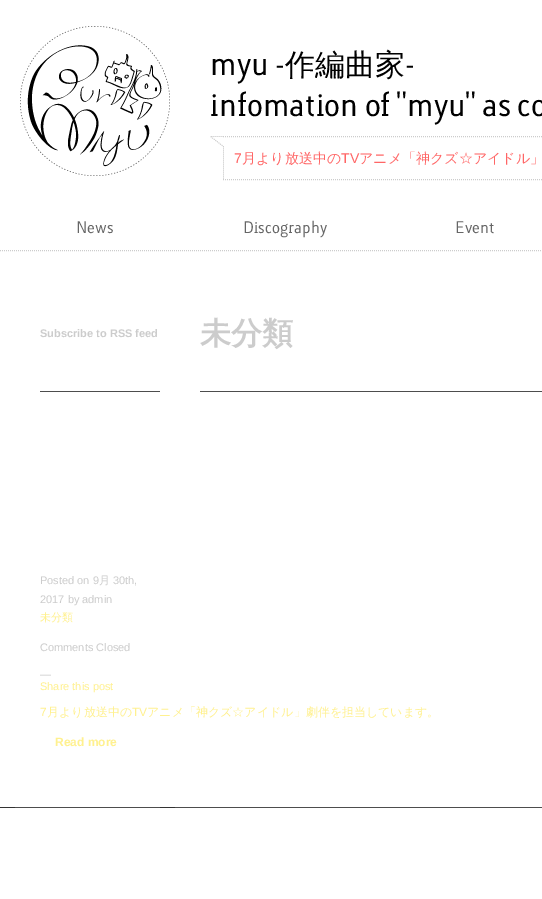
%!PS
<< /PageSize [542 899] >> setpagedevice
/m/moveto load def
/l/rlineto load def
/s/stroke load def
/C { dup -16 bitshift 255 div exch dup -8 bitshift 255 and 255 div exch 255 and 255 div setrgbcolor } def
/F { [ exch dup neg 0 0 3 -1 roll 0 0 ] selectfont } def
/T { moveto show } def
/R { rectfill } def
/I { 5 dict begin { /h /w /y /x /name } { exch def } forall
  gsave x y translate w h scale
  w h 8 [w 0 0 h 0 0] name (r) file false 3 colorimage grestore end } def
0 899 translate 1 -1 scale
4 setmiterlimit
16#FFFFFF C
0 0 542 899 R
16#CCCCCC C
[1 1] 0 setdash
0 250.5 m 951 0 l s
(1.rgb) 20 26 150 150 I
/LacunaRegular-Regular 30 F
16#000000 C
(myu -) 210 75 T
/WenQuanYiZenHei-Medium 30 F
(作編曲家) 285 75 T
/LacunaRegular-Regular 30 F
(-) 405 75 T
(infomation of "myu" as co) 210 116 T
(2.rgb) 210 136 14 44 I
16#CCCCCC C
223 136.5 m 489 0 l s
223 179.5 m 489 0 l s
/LiberationSans-Regular 14 F
16#FF6666 C
(7) 234 163 T
/WenQuanYiZenHei-Medium 14 F
(月より放送中の) 242 163 T
/LiberationSans-Regular 14 F
(TV) 341 163 T
/WenQuanYiZenHei-Medium 14 F
(アニメ「神クズ☆アイドル」) 359 163 T
/LacunaRegular-Regular 15 F
16#666666 C
(News) 76 233 T
(Discography) 243 233 T
(Event) 455 233 T
16#4D4D4D C
40 391 120 1 R
/LiberationSans-Bold 11 F
16#CCCCCC C
(Subscribe to RSS feed) 40 337 T
16#4D4D4D C
200 391 342 1 R
/WenQuanYiZenHei-Bold 31 F
16#CCCCCC C
(未分類) 200 344 T
(3.rgb) 0 807 542 1 I
/LiberationSans-Regular 11 F
(Posted on 9) 40 584 T
/WenQuanYiZenHei-Medium 11 F
(月) 99 584 T
/LiberationSans-Regular 11 F
(30th,) 113 584 T
(2017 by admin) 40 603 T
/WenQuanYiZenHei-Medium 11 F
16#FFF18F C
(未分類) 40 621 T
/LiberationSans-Regular 11 F
16#CCCCCC C
(Comments Closed) 40 651 T
(—) 40 678 T
16#FFF18F C
(Share this post) 40 690 T
/LiberationSans-Regular 12 F
(7) 40 716 T
/WenQuanYiZenHei-Medium 12 F
(月より放送中の) 47 716 T
/LiberationSans-Regular 12 F
(TV) 132 716 T
/WenQuanYiZenHei-Medium 12 F
(アニメ「神クズ☆アイドル」劇伴を担当しています。) 147 716 T
/LiberationSans-Bold 12 F
(Read more) 55 746 T
showpage
